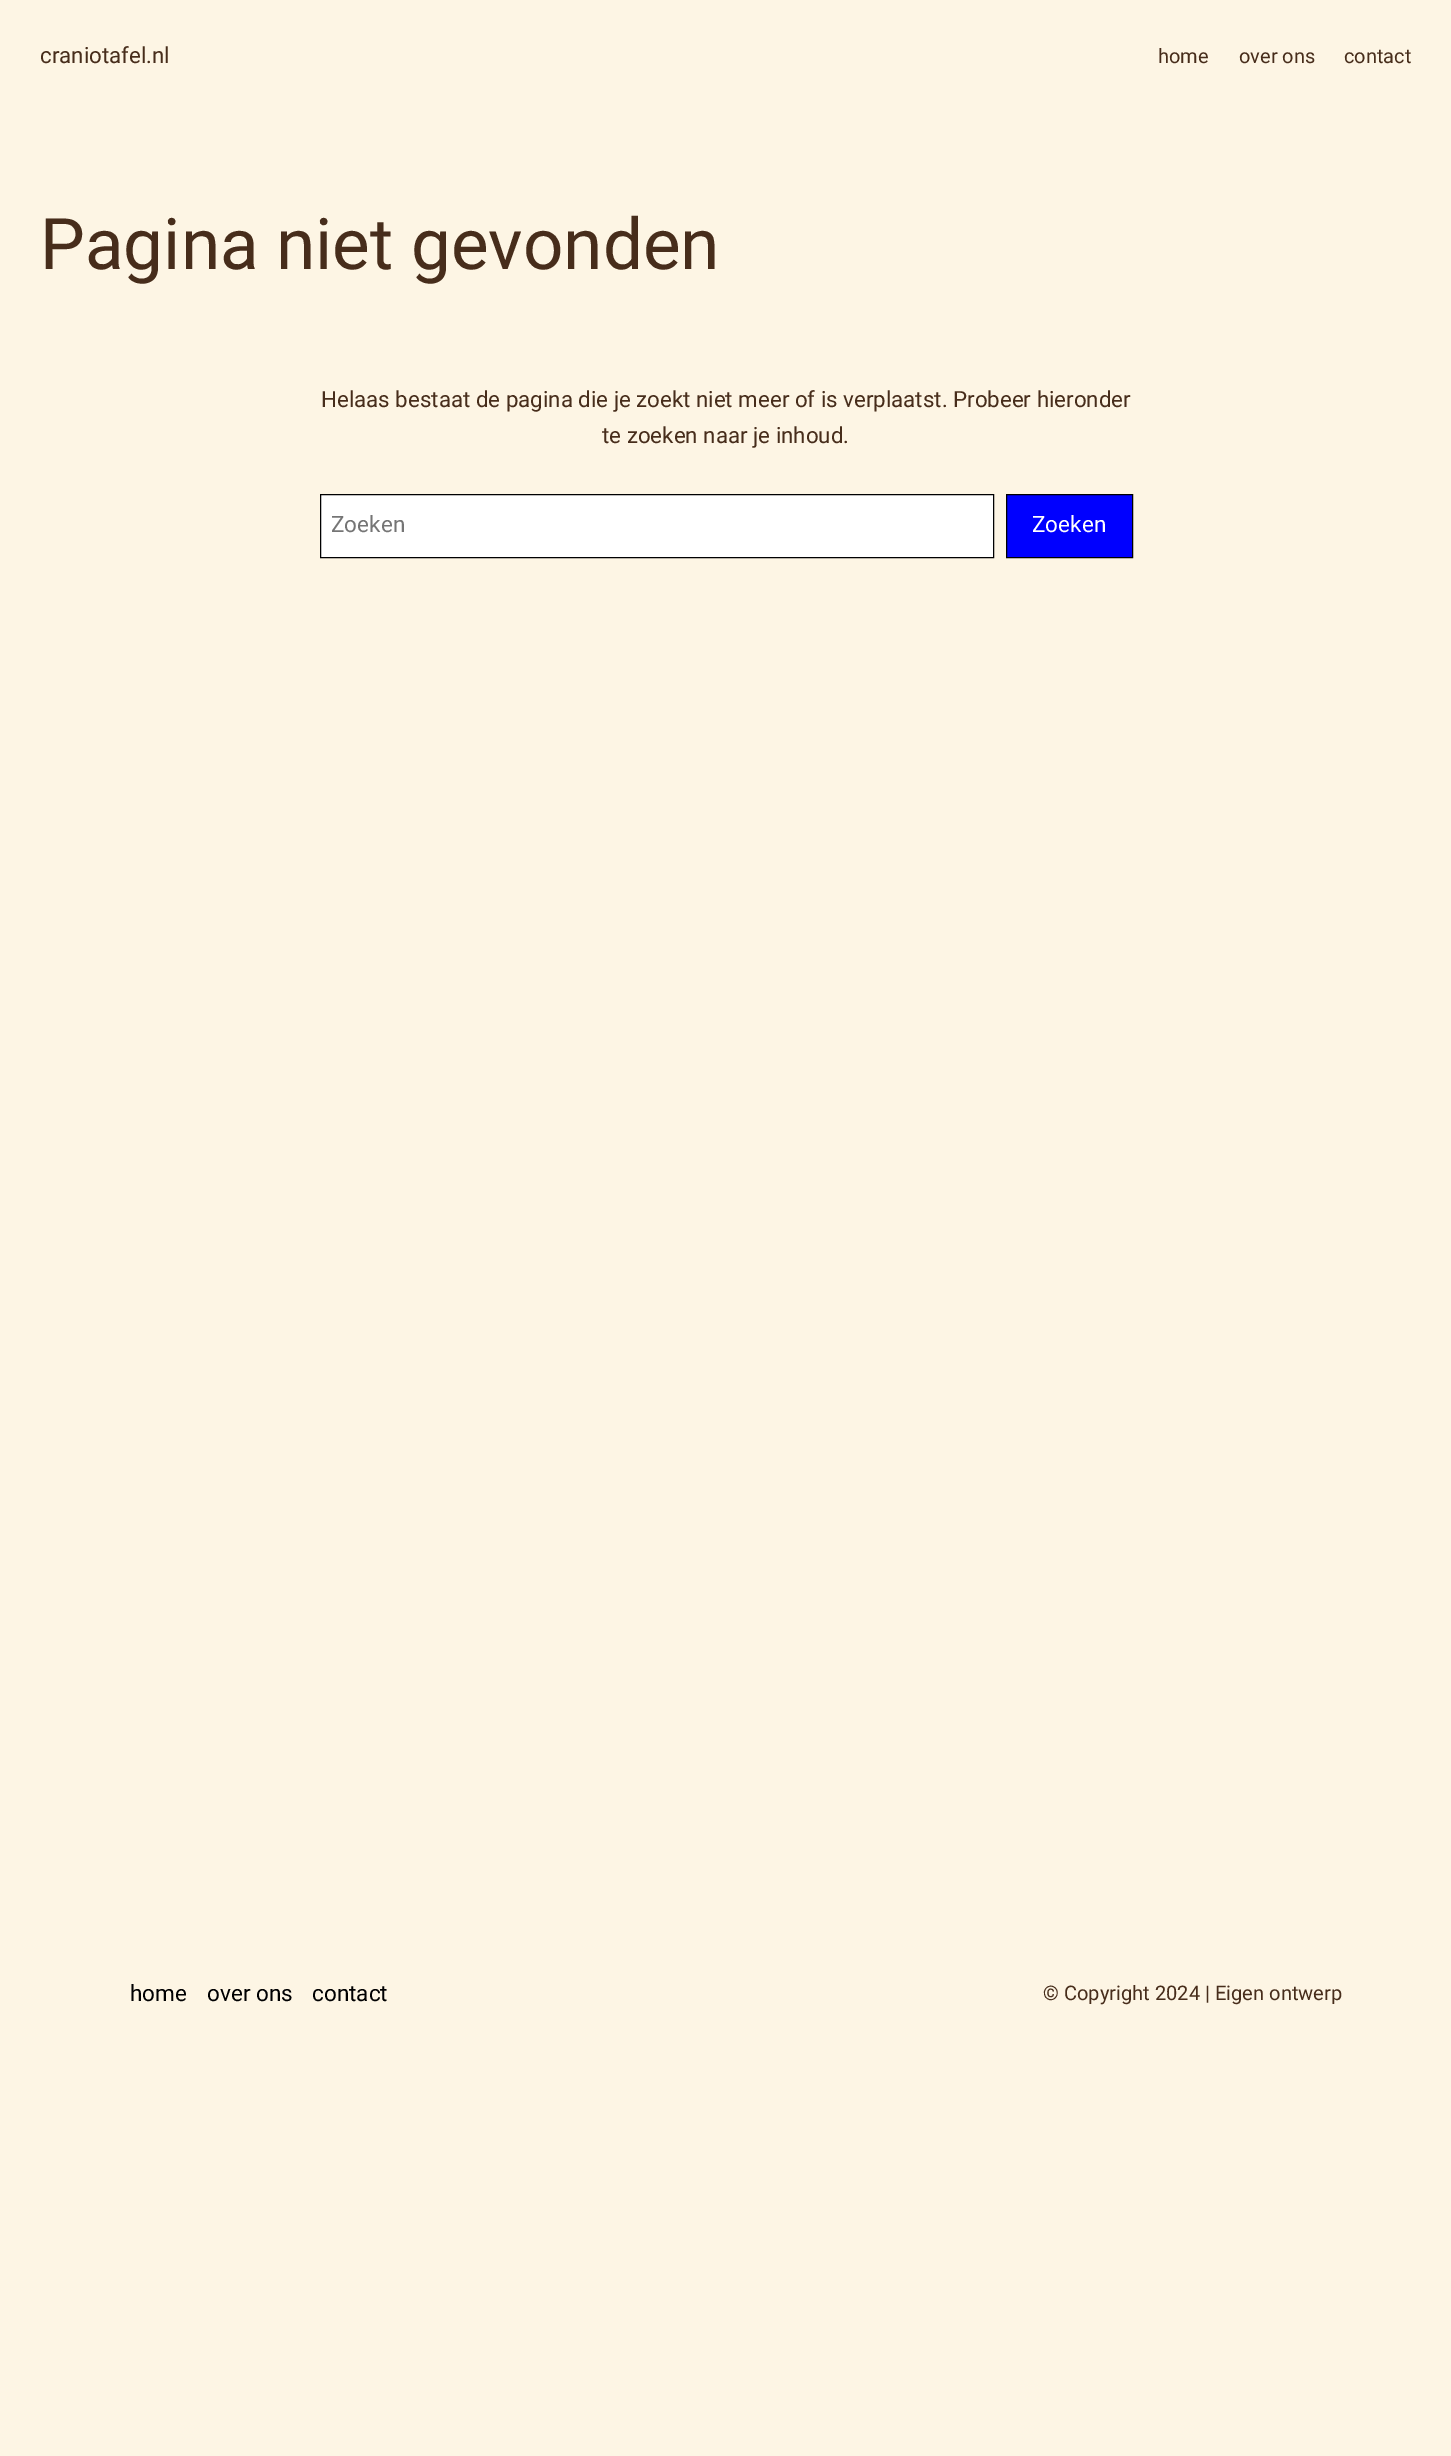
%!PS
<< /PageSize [1451 2456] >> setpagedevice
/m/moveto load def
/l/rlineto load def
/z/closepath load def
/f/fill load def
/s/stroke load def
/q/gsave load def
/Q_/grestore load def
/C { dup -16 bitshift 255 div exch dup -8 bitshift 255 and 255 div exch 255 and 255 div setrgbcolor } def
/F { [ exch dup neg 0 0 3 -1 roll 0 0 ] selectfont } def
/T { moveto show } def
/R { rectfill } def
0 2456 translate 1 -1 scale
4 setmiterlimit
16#FDF5E4 C
0 0 1451 2456 R
/Roboto-Regular 22.3 F
16#472D1B C
(craniotafel.nl) 40 63 T
/Roboto-Regular 20 F
(home) 1158 63 T
(over ons) 1239 63 T
(contact) 1344 63 T
/Roboto-Regular 71 F
(Pagina niet gevonden) 40 269 T
/Roboto-Regular 22.3 F
(Helaas bestaat de pagina die je zoekt niet meer of is verplaatst. Probeer hieronder) 321 407 T
(te zoeken naar je inhoud.) 602 443 T
16#FFFFFF C
320.5 494.5 m 673 0 l 0 63 l -673 0 l z q f Q_
16#000001 C
s
/Roboto-Regular 22.5 F
16#757575 C
(Zoeken) 331 532 T
16#0000FF C
1006.5 494.5 m 126 0 l 0 63 l -126 0 l z q f Q_
16#000001 C
s
16#FFFFFF C
(Zoeken) 1032 532 T
16#000001 C
(home) 130 2001 T
(over ons) 207 2001 T
(contact) 312 2001 T
/Roboto-Regular 20.1 F
16#472D1B C
(© Copyright 2024 | Eigen ontwerp) 1043 2000 T
showpage
